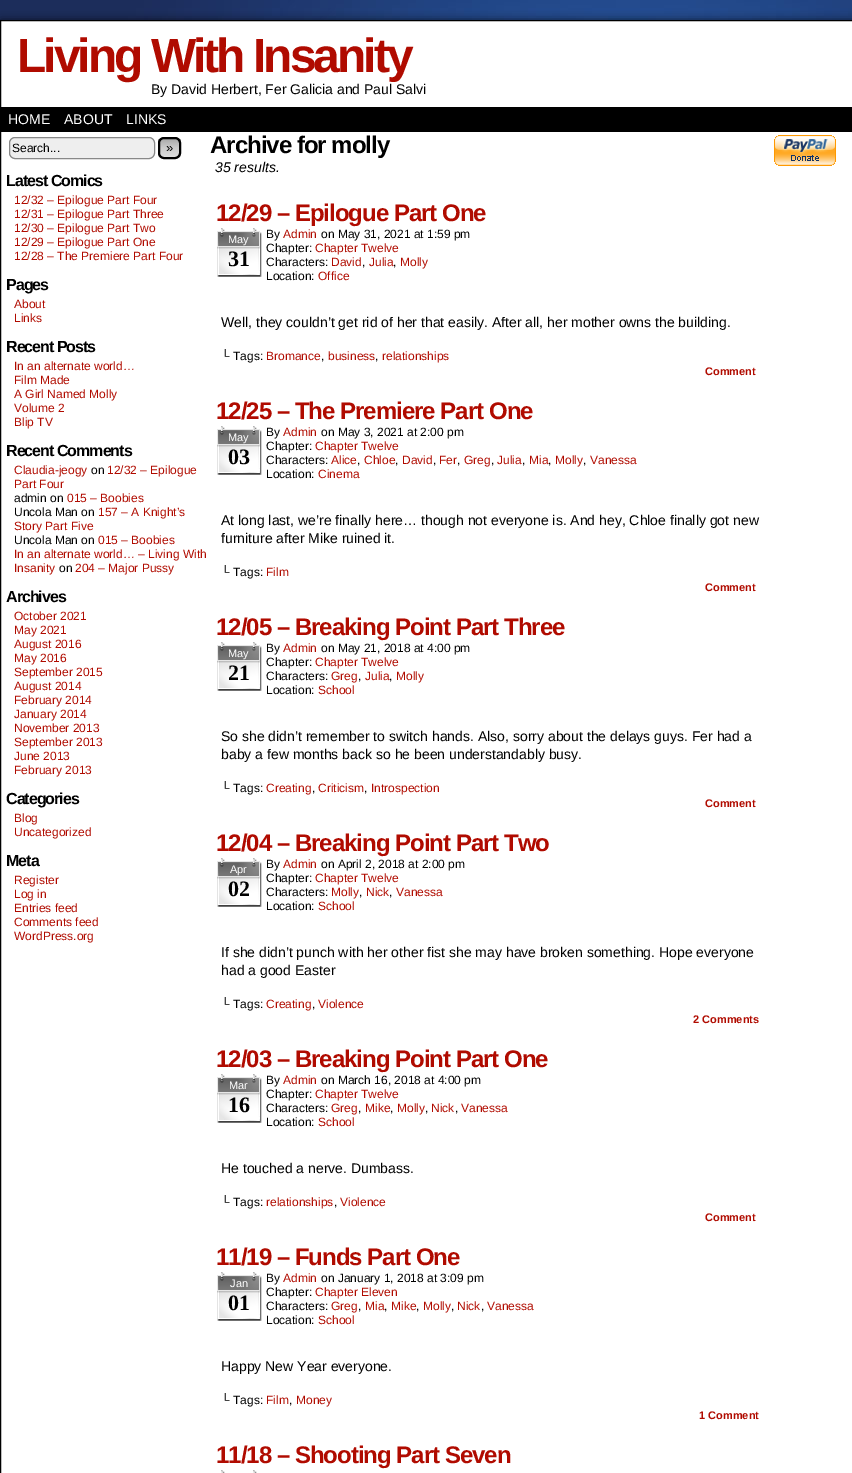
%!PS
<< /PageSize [852 1473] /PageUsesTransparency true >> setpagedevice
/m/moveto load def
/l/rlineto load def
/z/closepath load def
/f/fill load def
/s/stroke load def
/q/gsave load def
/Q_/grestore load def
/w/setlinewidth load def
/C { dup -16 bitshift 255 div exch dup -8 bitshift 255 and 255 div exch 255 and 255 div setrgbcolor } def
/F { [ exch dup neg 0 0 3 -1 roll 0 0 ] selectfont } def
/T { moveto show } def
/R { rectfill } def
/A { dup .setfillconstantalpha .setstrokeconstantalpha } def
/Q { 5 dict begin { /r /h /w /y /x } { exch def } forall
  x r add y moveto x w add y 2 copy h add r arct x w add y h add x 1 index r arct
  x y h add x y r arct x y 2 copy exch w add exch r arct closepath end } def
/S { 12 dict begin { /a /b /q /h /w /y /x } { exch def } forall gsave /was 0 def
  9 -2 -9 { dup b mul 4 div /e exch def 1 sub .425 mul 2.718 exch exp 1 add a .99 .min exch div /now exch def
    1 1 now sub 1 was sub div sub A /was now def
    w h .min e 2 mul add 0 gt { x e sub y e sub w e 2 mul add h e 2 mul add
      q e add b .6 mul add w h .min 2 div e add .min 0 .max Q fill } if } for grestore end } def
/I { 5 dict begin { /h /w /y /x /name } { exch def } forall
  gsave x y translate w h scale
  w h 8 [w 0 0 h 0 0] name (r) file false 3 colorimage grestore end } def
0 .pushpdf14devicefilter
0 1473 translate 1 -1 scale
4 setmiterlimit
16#FFFFFF C
0 0 852 1473 R
(1.rgb) 0 0 852 20 I
16#000000 C
1 22 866 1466 0 5 1 S
16#FFFFFF C
.5 20.5 m 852 0 l 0 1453 l -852 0 l z q f Q_
16#000000 C
s
/LiberationSans-Bold 48 F
16#B00B00 C
17 72 m -3 0 (Living With Insanity) ashow
/LiberationSans-Regular 14 F
16#000000 C
(By David Herbert, Fer Galicia and Paul Salvi) 151 94 T
1 107 851 25 R
16#FFFFFF C
(HOME) 8 124 T
(ABOUT) 64 124 T
(LINKS) 126 124 T
16#EEEEEE C
9.5 137.5 145 21 5.5 Q q f Q_
16#888888 C
s
/LiberationSans-Regular 12 F
16#000000 C
(Search...) 12 152 T
q
158 137 23 22 6 Q clip newpath
q 158 139 m 23 0 l 0 18 l -23 0 l z clip newpath
<< /ShadingType 2 /ColorSpace /DeviceRGB /Coords [170 139 170 157] /Extend [true true] /Function << /FunctionType 3 /Domain [0 1] /Functions [<< /FunctionType 2 /Domain [0 1] /C0 [.667 .667 .667] /C1 [.8 .8 .8] /N 1 >> << /FunctionType 2 /Domain [0 1] /C0 [.8 .8 .8] /C1 [.867 .867 .867] /N 1 >>] /Bounds [.5] /Encode [0 1 0 1] >> >> shfill Q_
Q_
2 w
159 138 21 20 5 Q s
/LiberationSans-Regular 13 F
(») 166 152 T
/LiberationSans-Bold 16 F
6 186 m -1 0 (Latest Comics) ashow
/LiberationSans-Regular 12 F
16#B00B00 C
(12/32 – Epilogue Part Four) 14 204 T
(12/31 – Epilogue Part Three) 14 218 T
(12/30 – Epilogue Part Two) 14 232 T
(12/29 – Epilogue Part One) 14 246 T
(12/28 – The Premiere Part Four) 14 260 T
/LiberationSans-Bold 16 F
16#000000 C
6 290 m -1 0 (Pages) ashow
/LiberationSans-Regular 12 F
16#B00B00 C
(About) 14 308 T
(Links) 14 322 T
/LiberationSans-Bold 16 F
16#000000 C
6 352 m -1 0 (Recent Posts) ashow
/LiberationSans-Regular 12 F
16#B00B00 C
(In an alternate world…) 14 370 T
(Film Made) 14 384 T
(A Girl Named Molly) 14 398 T
(Volume 2) 14 412 T
(Blip TV) 14 426 T
/LiberationSans-Bold 16 F
16#000000 C
6 456 m -1 0 (Recent Comments) ashow
/LiberationSans-Regular 12 F
16#B00B00 C
(Claudia-jeogy) 14 474 T
16#000000 C
(on) 91 474 T
16#B00B00 C
(12/32 – Epilogue) 107 474 T
(Part Four) 14 488 T
16#000000 C
(admin on) 14 502 T
16#B00B00 C
(015 – Boobies) 67 502 T
16#000000 C
(Uncola Man on) 14 516 T
16#B00B00 C
(157 – A Knight’s) 98 516 T
(Story Part Five) 14 530 T
16#000000 C
(Uncola Man on) 14 544 T
16#B00B00 C
(015 – Boobies) 98 544 T
(In an alternate world… – Living With) 14 558 T
(Insanity) 14 572 T
16#000000 C
(on) 59 572 T
16#B00B00 C
(204 – Major Pussy) 75 572 T
/LiberationSans-Bold 16 F
16#000000 C
6 602 m -1 0 (Archives) ashow
/LiberationSans-Regular 12 F
16#B00B00 C
(October 2021) 14 620 T
(May 2021) 14 634 T
(August 2016) 14 648 T
(May 2016) 14 662 T
(September 2015) 14 676 T
(August 2014) 14 690 T
(February 2014) 14 704 T
(January 2014) 14 718 T
(November 2013) 14 732 T
(September 2013) 14 746 T
(June 2013) 14 760 T
(February 2013) 14 774 T
/LiberationSans-Bold 16 F
16#000000 C
6 804 m -1 0 (Categories) ashow
/LiberationSans-Regular 12 F
16#B00B00 C
(Blog) 14 822 T
(Uncategorized) 14 836 T
/LiberationSans-Bold 16 F
16#000000 C
6 866 m -1 0 (Meta) ashow
/LiberationSans-Regular 12 F
16#B00B00 C
(Register) 14 884 T
(Log in) 14 898 T
(Entries feed) 14 912 T
(Comments feed) 14 926 T
(WordPress.org) 14 940 T
/LiberationSans-Bold 24 F
16#000000 C
210 153 m -1 0 (Archive for molly) ashow
/LiberationSans-Italic 14 F
(35 results.) 215 172 T
/LiberationSans-Bold 24 F
16#B00B00 C
216 221 m -1 0 (12/29 – Epilogue Part One) ashow
(2.rgb) 217 228 45 49 I
/LiberationSans-Regular 11 F
16#FFFFFF C
(May) 228 243 T
/LiberationSerif-Bold 22 F
16#000000 C
(31) 228 266 T
/LiberationSans-Regular 12 F
(By) 266 238 T
16#B00B00 C
(Admin) 283 238 T
16#000000 C
(on May 31, 2021 at 1:59 pm) 321 238 T
(Chapter:) 266 252 T
16#B00B00 C
(Chapter Twelve) 315 252 T
16#000000 C
(Characters:) 266 266 T
16#B00B00 C
(David) 331 266 T
16#000000 C
(,) 362 266 T
16#B00B00 C
(Julia) 369 266 T
16#000000 C
(,) 393 266 T
16#B00B00 C
(Molly) 400 266 T
16#000000 C
(Location:) 266 280 T
16#B00B00 C
(Office) 318 280 T
/LiberationSans-Regular 14 F
16#000000 C
(Well, they couldn’t get rid of her that easily. After all, her mother owns the building.) 221 327 T
/LiberationSans-Regular 12 F
(└ Tags:) 221 360 T
16#B00B00 C
(Bromance) 266 360 T
16#000000 C
(,) 321 360 T
16#B00B00 C
(business) 328 360 T
16#000000 C
(,) 375 360 T
16#B00B00 C
(relationships) 382 360 T
/LiberationSans-Bold 11 F
(Comment) 705 375 T
/LiberationSans-Bold 24 F
216 419 m -1 0 (12/25 – The Premiere Part One) ashow
(2.rgb) 217 426 45 49 I
/LiberationSans-Regular 11 F
16#FFFFFF C
(May) 228 441 T
/LiberationSerif-Bold 22 F
16#000000 C
(03) 228 464 T
/LiberationSans-Regular 12 F
(By) 266 436 T
16#B00B00 C
(Admin) 283 436 T
16#000000 C
(on May 3, 2021 at 2:00 pm) 321 436 T
(Chapter:) 266 450 T
16#B00B00 C
(Chapter Twelve) 315 450 T
16#000000 C
(Characters:) 266 464 T
16#B00B00 C
(Alice) 331 464 T
16#000000 C
(,) 357 464 T
16#B00B00 C
(Chloe) 364 464 T
16#000000 C
(,) 395 464 T
16#B00B00 C
(David) 402 464 T
16#000000 C
(,) 433 464 T
16#B00B00 C
(Fer) 439 464 T
16#000000 C
(,) 457 464 T
16#B00B00 C
(Greg) 464 464 T
16#000000 C
(,) 491 464 T
16#B00B00 C
(Julia) 497 464 T
16#000000 C
(,) 522 464 T
16#B00B00 C
(Mia) 529 464 T
16#000000 C
(,) 548 464 T
16#B00B00 C
(Molly) 555 464 T
16#000000 C
(,) 583 464 T
16#B00B00 C
(Vanessa) 590 464 T
16#000000 C
(Location:) 266 478 T
16#B00B00 C
(Cinema) 318 478 T
/LiberationSans-Regular 14 F
16#000000 C
(At long last, we’re finally here… though not everyone is. And hey, Chloe finally got new) 221 525 T
(furniture after Mike ruined it.) 221 543 T
/LiberationSans-Regular 12 F
(└ Tags:) 221 576 T
16#B00B00 C
(Film) 266 576 T
/LiberationSans-Bold 11 F
(Comment) 705 591 T
/LiberationSans-Bold 24 F
216 635 m -1 0 (12/05 – Breaking Point Part Three) ashow
(2.rgb) 217 642 45 49 I
/LiberationSans-Regular 11 F
16#FFFFFF C
(May) 228 657 T
/LiberationSerif-Bold 22 F
16#000000 C
(21) 228 680 T
/LiberationSans-Regular 12 F
(By) 266 652 T
16#B00B00 C
(Admin) 283 652 T
16#000000 C
(on May 21, 2018 at 4:00 pm) 321 652 T
(Chapter:) 266 666 T
16#B00B00 C
(Chapter Twelve) 315 666 T
16#000000 C
(Characters:) 266 680 T
16#B00B00 C
(Greg) 331 680 T
16#000000 C
(,) 358 680 T
16#B00B00 C
(Julia) 365 680 T
16#000000 C
(,) 389 680 T
16#B00B00 C
(Molly) 396 680 T
16#000000 C
(Location:) 266 694 T
16#B00B00 C
(School) 318 694 T
/LiberationSans-Regular 14 F
16#000000 C
(So she didn’t remember to switch hands. Also, sorry about the delays guys. Fer had a) 221 741 T
(baby a few months back so he been understandably busy.) 221 759 T
/LiberationSans-Regular 12 F
(└ Tags:) 221 792 T
16#B00B00 C
(Creating) 266 792 T
16#000000 C
(,) 312 792 T
16#B00B00 C
(Criticism) 318 792 T
16#000000 C
(,) 364 792 T
16#B00B00 C
(Introspection) 371 792 T
/LiberationSans-Bold 11 F
(Comment) 705 807 T
/LiberationSans-Bold 24 F
216 851 m -1 0 (12/04 – Breaking Point Part Two) ashow
(2.rgb) 217 858 45 49 I
/LiberationSans-Regular 11 F
16#FFFFFF C
(Apr) 230 873 T
/LiberationSerif-Bold 22 F
16#000000 C
(02) 228 896 T
/LiberationSans-Regular 12 F
(By) 266 868 T
16#B00B00 C
(Admin) 283 868 T
16#000000 C
(on April 2, 2018 at 2:00 pm) 321 868 T
(Chapter:) 266 882 T
16#B00B00 C
(Chapter Twelve) 315 882 T
16#000000 C
(Characters:) 266 896 T
16#B00B00 C
(Molly) 331 896 T
16#000000 C
(,) 359 896 T
16#B00B00 C
(Nick) 366 896 T
16#000000 C
(,) 389 896 T
16#B00B00 C
(Vanessa) 396 896 T
16#000000 C
(Location:) 266 910 T
16#B00B00 C
(School) 318 910 T
/LiberationSans-Regular 14 F
16#000000 C
(If she didn’t punch with her other fist she may have broken something. Hope everyone) 221 957 T
(had a good Easter) 221 975 T
/LiberationSans-Regular 12 F
(└ Tags:) 221 1008 T
16#B00B00 C
(Creating) 266 1008 T
16#000000 C
(,) 312 1008 T
16#B00B00 C
(Violence) 318 1008 T
/LiberationSans-Bold 11 F
(2 Comments) 693 1023 T
/LiberationSans-Bold 24 F
216 1067 m -1 0 (12/03 – Breaking Point Part One) ashow
(2.rgb) 217 1074 45 49 I
/LiberationSans-Regular 11 F
16#FFFFFF C
(Mar) 229 1089 T
/LiberationSerif-Bold 22 F
16#000000 C
(16) 228 1112 T
/LiberationSans-Regular 12 F
(By) 266 1084 T
16#B00B00 C
(Admin) 283 1084 T
16#000000 C
(on March 16, 2018 at 4:00 pm) 321 1084 T
(Chapter:) 266 1098 T
16#B00B00 C
(Chapter Twelve) 315 1098 T
16#000000 C
(Characters:) 266 1112 T
16#B00B00 C
(Greg) 331 1112 T
16#000000 C
(,) 358 1112 T
16#B00B00 C
(Mike) 365 1112 T
16#000000 C
(,) 390 1112 T
16#B00B00 C
(Molly) 397 1112 T
16#000000 C
(,) 425 1112 T
16#B00B00 C
(Nick) 431 1112 T
16#000000 C
(,) 455 1112 T
16#B00B00 C
(Vanessa) 461 1112 T
16#000000 C
(Location:) 266 1126 T
16#B00B00 C
(School) 318 1126 T
/LiberationSans-Regular 14 F
16#000000 C
(He touched a nerve. Dumbass.) 221 1173 T
/LiberationSans-Regular 12 F
(└ Tags:) 221 1206 T
16#B00B00 C
(relationships) 266 1206 T
16#000000 C
(,) 334 1206 T
16#B00B00 C
(Violence) 340 1206 T
/LiberationSans-Bold 11 F
(Comment) 705 1221 T
/LiberationSans-Bold 24 F
216 1265 m -1 0 (11/19 – Funds Part One) ashow
(2.rgb) 217 1272 45 49 I
/LiberationSans-Regular 11 F
16#FFFFFF C
(Jan) 230 1287 T
/LiberationSerif-Bold 22 F
16#000000 C
(01) 228 1310 T
/LiberationSans-Regular 12 F
(By) 266 1282 T
16#B00B00 C
(Admin) 283 1282 T
16#000000 C
(on January 1, 2018 at 3:09 pm) 321 1282 T
(Chapter:) 266 1296 T
16#B00B00 C
(Chapter Eleven) 315 1296 T
16#000000 C
(Characters:) 266 1310 T
16#B00B00 C
(Greg) 331 1310 T
16#000000 C
(,) 358 1310 T
16#B00B00 C
(Mia) 365 1310 T
16#000000 C
(,) 384 1310 T
16#B00B00 C
(Mike) 391 1310 T
16#000000 C
(,) 416 1310 T
16#B00B00 C
(Molly) 423 1310 T
16#000000 C
(,) 451 1310 T
16#B00B00 C
(Nick) 457 1310 T
16#000000 C
(,) 481 1310 T
16#B00B00 C
(Vanessa) 487 1310 T
16#000000 C
(Location:) 266 1324 T
16#B00B00 C
(School) 318 1324 T
/LiberationSans-Regular 14 F
16#000000 C
(Happy New Year everyone.) 221 1371 T
/LiberationSans-Regular 12 F
(└ Tags:) 221 1404 T
16#B00B00 C
(Film) 266 1404 T
16#000000 C
(,) 289 1404 T
16#B00B00 C
(Money) 296 1404 T
/LiberationSans-Bold 11 F
(1 Comment) 699 1419 T
/LiberationSans-Bold 24 F
216 1463 m -1 0 (11/18 – Shooting Part Seven) ashow
(3.rgb) 221 1470 36 3 I
(4.rgb) 774 135 62 31 I
.poppdf14devicefilter showpage
